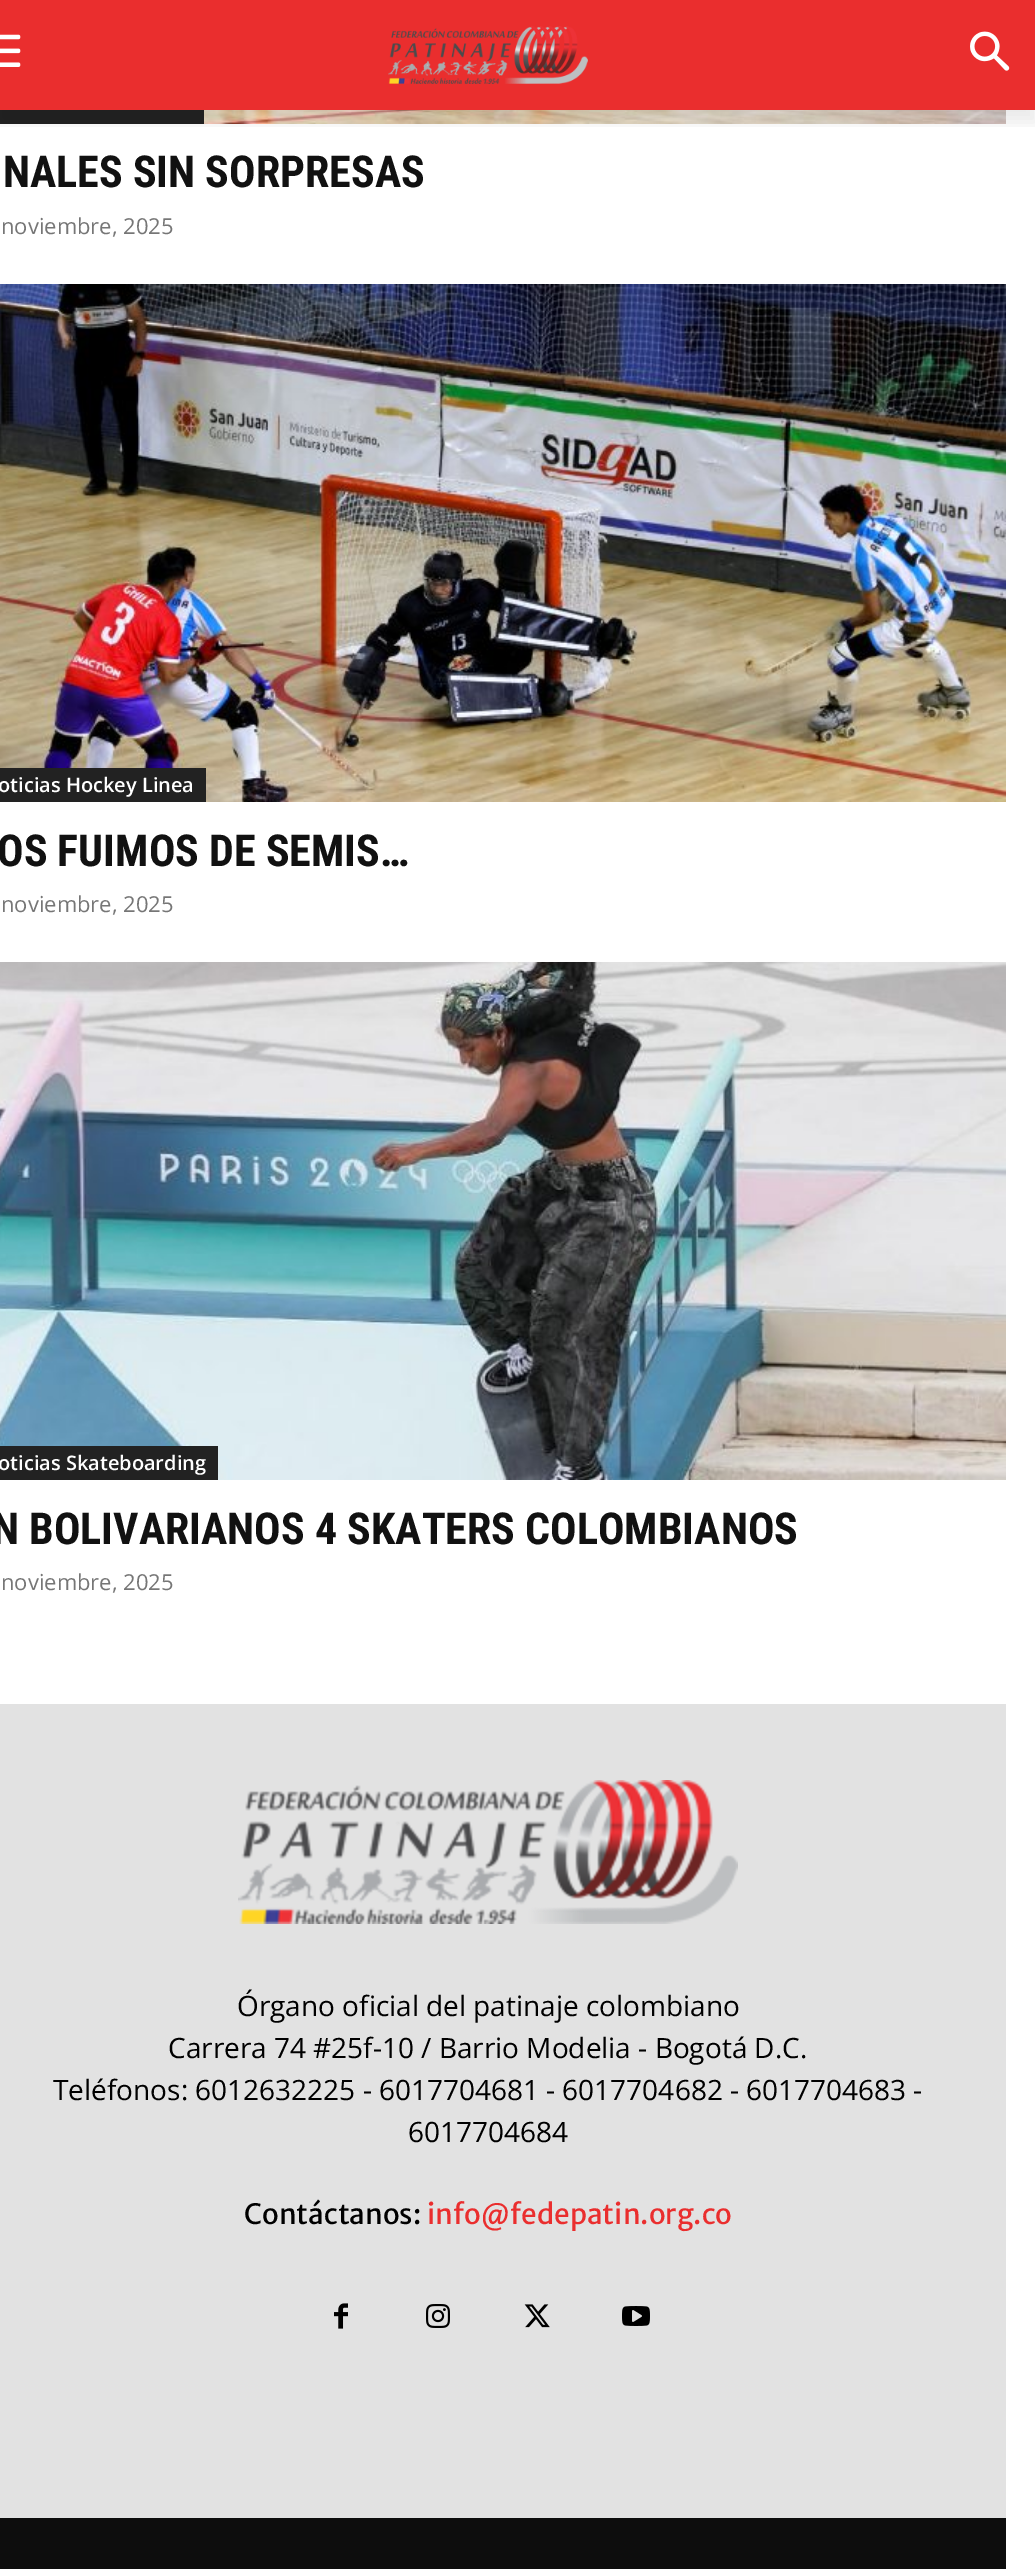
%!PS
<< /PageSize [1035 2569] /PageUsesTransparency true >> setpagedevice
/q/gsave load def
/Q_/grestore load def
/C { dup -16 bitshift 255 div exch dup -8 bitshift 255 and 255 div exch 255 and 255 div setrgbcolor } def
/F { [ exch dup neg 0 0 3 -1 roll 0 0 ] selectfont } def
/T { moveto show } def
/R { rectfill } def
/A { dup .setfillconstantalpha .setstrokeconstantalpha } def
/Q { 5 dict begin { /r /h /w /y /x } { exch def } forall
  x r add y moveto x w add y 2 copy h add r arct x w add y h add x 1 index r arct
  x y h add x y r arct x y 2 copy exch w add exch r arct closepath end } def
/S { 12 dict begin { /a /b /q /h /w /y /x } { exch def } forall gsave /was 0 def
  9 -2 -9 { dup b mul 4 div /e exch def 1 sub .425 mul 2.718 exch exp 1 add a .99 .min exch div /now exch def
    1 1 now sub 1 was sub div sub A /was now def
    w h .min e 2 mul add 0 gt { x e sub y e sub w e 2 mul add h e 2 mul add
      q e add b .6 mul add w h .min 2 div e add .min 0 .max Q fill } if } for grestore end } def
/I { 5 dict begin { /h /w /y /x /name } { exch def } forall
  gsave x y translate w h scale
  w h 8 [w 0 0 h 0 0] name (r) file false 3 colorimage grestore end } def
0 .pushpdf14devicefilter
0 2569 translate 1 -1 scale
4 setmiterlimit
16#FFFFFF C
0 0 1035 2569 R
16#EA2E2E C
0 0 1035 110 R
(1.rgb) 0 34 21 33 I
(2.rgb) 388 26 200 58 I
(3.rgb) 970 31 40 40 I
16#222222 C
0 110 204 14 R
(4.rgb) 204 110 802 14 I
q
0 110 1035 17 rectclip
16#000000 C
0 12 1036 110 0 8 .08 S
Q_
/RobotoCondensed-Bold 44 F
16#111111 C
(NALES SIN SORPRESAS) 3 187 T
/OpenSans-Regular 22 F
16#767676 C
(noviembre, 2025) 1 234 T
(5.rgb) 0 284 1006 518 I
16#222222 C
0 768 206 34 R
/OpenSans-SemiBold 20 F
16#FFFFFF C
(oticias Hockey Linea) -2 792 T
/RobotoCondensed-Bold 44 F
16#111111 C
(OS FUIMOS DE SEMIS…) -3 866 T
/OpenSans-Regular 22 F
16#767676 C
(noviembre, 2025) 1 912 T
(6.rgb) 0 962 1006 518 I
16#222222 C
0 1446 218 34 R
/OpenSans-SemiBold 20 F
16#FFFFFF C
(oticias Skateboarding) -2 1470 T
/RobotoCondensed-Bold 44 F
16#111111 C
(N BOLIVARIANOS 4 SKATERS COLOMBIANOS) -8 1544 T
/OpenSans-Regular 22 F
16#767676 C
(noviembre, 2025) 1 1590 T
16#E2E2E2 C
0 1704 1006 814 R
(7.rgb) 238 1780 500 144 I
/OpenSans-Regular 28 F
16#000000 C
(Órgano oficial del patinaje colombiano) 237 2016 T
(Carrera 74 #25f-10 / Barrio Modelia - Bogotá D.C.) 168 2058 T
(Teléfonos: 6012632225 - 6017704681 - 6017704682 - 6017704683 -) 53 2100 T
(6017704684) 408 2142 T
/MerriweatherSans-Regular 28 F
(Contáctanos:) 244 2224 T
16#EA2E2E C
(info@fedepatin.org.co) 427 2224 T
(8.rgb) 334 2303 14 26 I
(9.rgb) 426 2304 24 24 I
(10.rgb) 524 2304 26 24 I
(11.rgb) 622 2306 28 20 I
16#0D0D0D C
0 2518 1006 51 R
.poppdf14devicefilter showpage
